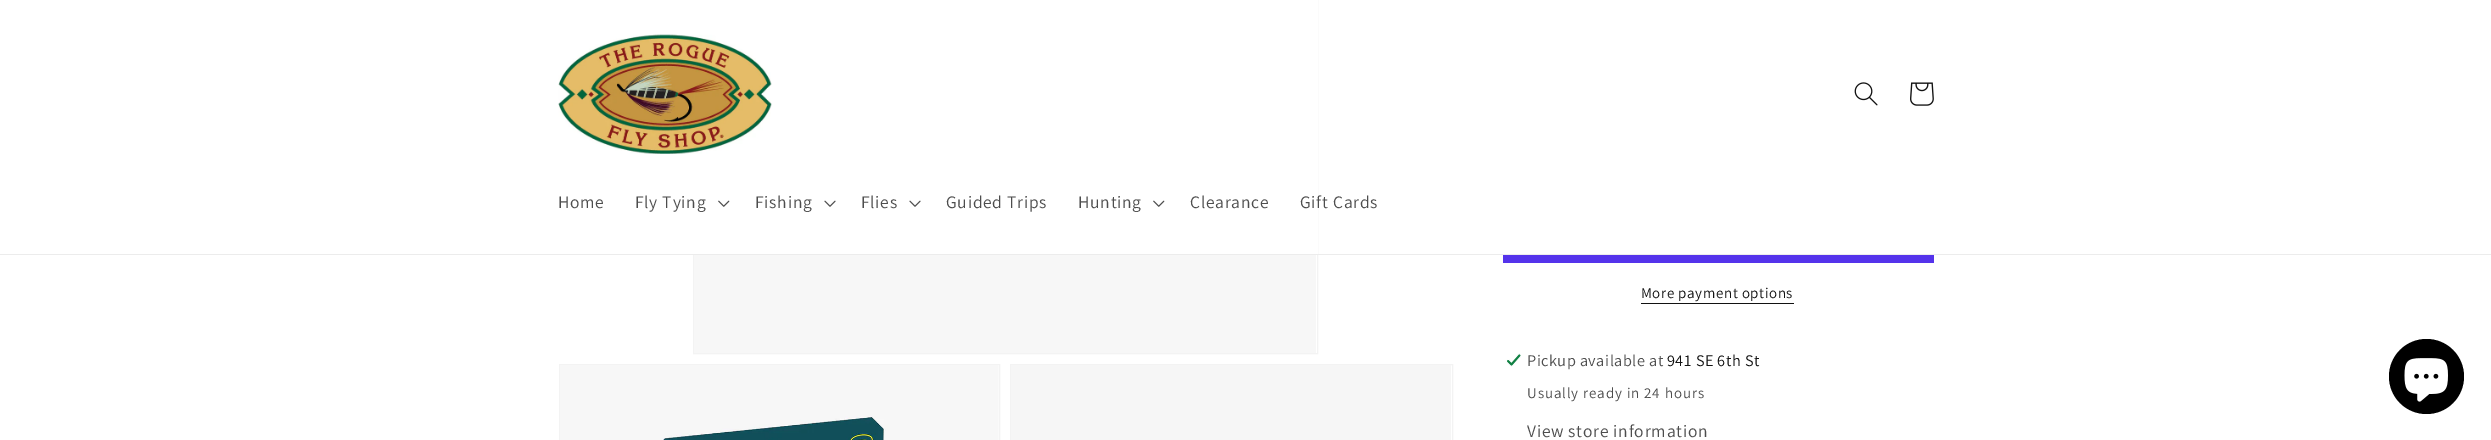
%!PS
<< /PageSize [2491 440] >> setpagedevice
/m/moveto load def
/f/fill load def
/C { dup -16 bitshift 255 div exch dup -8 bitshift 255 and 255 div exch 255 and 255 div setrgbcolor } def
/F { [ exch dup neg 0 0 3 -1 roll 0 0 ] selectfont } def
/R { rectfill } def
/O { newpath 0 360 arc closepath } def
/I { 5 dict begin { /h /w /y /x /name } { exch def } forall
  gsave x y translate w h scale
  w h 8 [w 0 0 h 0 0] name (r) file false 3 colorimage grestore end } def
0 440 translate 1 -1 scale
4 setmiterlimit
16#FFFFFF C
0 0 2491 440 R
16#F3F3F3 C
693.5 -.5 624 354 rectstroke
16#FFFFFF C
693 0 625 254 R
16#ECECEC C
0 254 2491 1 R
(1.rgb) 558 34 214 120 I
(2.rgb) 1854 82 24 24 I
(3.rgb) 1910 82 24 24 I
/Assistant-Regular 17.5 F
16#4D4D4D C
558 208 m .75 0 (Home) ashow
635 208 m .75 0 (Fly Tying) ashow
(4.rgb) 718 200 12 7 I
755 208 m .75 0 (Fishing) ashow
(5.rgb) 824 200 12 7 I
861 208 m .75 0 (Flies) ashow
(5.rgb) 909 200 12 7 I
946 208 m .75 0 (Guided Trips) ashow
1078 208 m .75 0 (Hunting) ashow
(4.rgb) 1153 200 12 7 I
1190 208 m .75 0 (Clearance) ashow
1300 208 m .75 0 (Gift Cards) ashow
(6.rgb) 694 255 622 98 I
16#F3F3F3 C
559.5 364.5 440 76 rectstroke
(7.rgb) 560 365 439 75 I
1010.5 364.5 442 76 rectstroke
16#F6F6F6 C
1011 365 440 75 R
16#5433EB C
1503 255 431 8 R
/Assistant-Regular 15 F
16#121212 C
1641 298 m .6 0 (More payment options) ashow
1641 303 153 1 R
(8.rgb) 1506 353 15 14 I
/Assistant-Regular 16.25 F
16#4D4D4D C
1527 366 m .5 0 (Pickup available at) ashow
16#121212 C
1667 366 m .5 0 (941 SE 6th St) ashow
/Assistant-Regular 15 F
16#4D4D4D C
1527 398 m .9 0 (Usually ready in 24 hours) ashow
/Assistant-Regular 17.5 F
1527 437 m .75 0 (View store information) ashow
16#000000 C
2426.5 376.5 37.5 O f
(9.rgb) 2404 358 44 44 I
showpage
